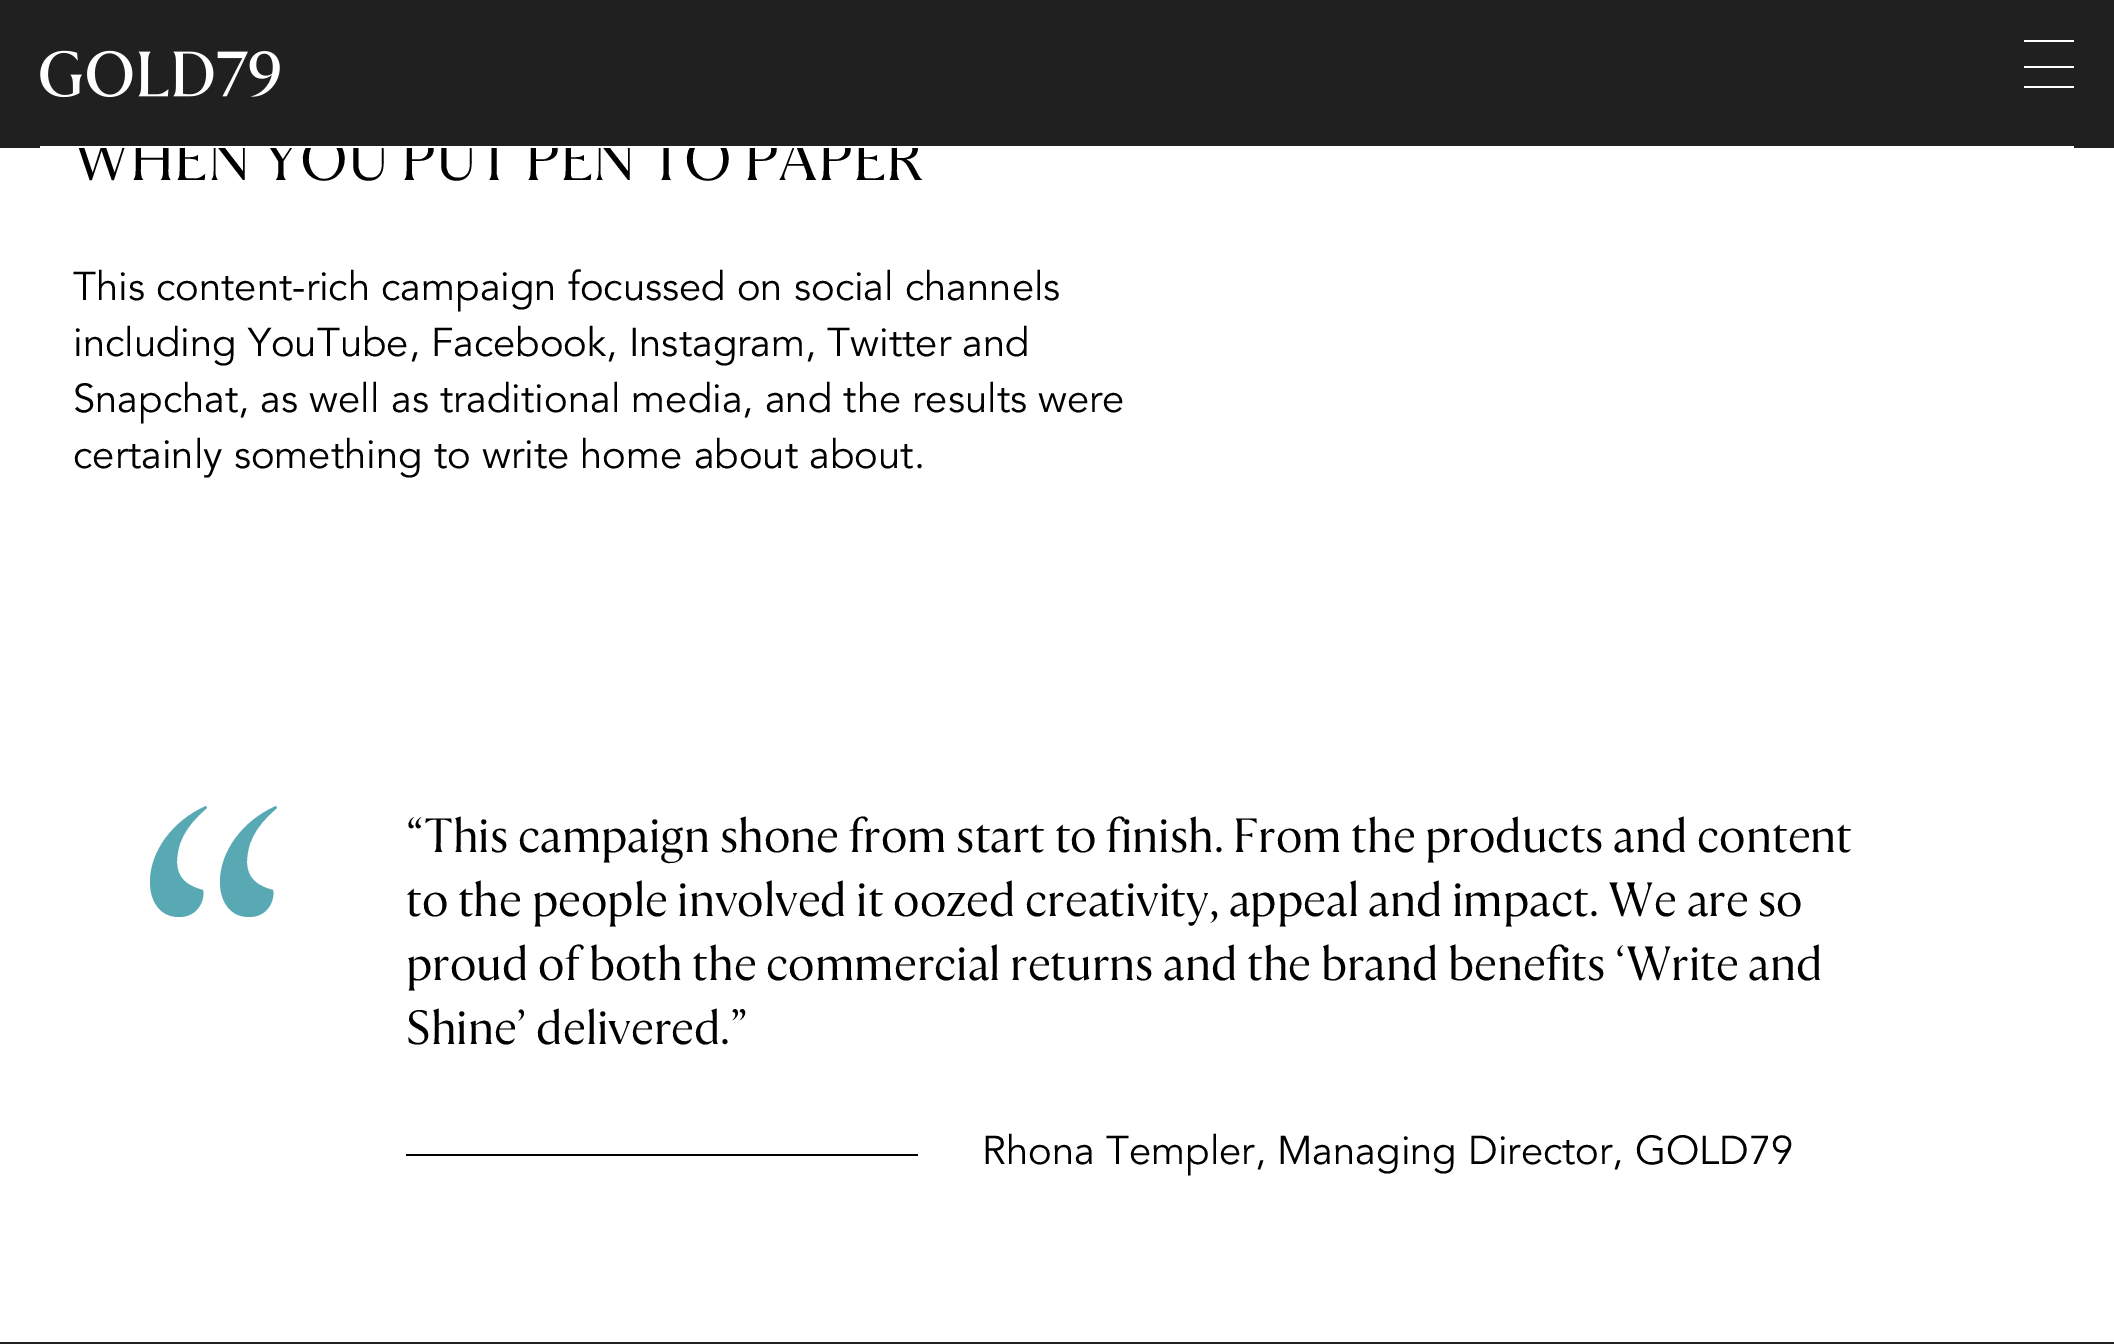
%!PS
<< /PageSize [2114 1344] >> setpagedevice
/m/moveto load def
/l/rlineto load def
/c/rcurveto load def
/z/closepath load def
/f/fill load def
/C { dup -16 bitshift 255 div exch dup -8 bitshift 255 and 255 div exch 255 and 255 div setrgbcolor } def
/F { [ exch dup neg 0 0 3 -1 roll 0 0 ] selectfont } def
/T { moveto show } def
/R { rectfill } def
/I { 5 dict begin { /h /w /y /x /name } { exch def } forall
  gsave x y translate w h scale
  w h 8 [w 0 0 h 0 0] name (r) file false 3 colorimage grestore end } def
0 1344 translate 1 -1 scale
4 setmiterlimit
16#FFFFFF C
0 0 2114 1344 R
/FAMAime-Regular 60 F
16#000000 C
(WHEN YOU PUT PEN TO PAPER) 73 180 T
16#202020 C
0 0 2114 148 R
16#FFFFFF C
40 146 2034 2 R
(1.rgb) 40 50 240 48 I
2024 40 50 2 R
2024 66 50 2 R
2024 86 50 2 R
/Avenir-Regular 40 F
16#000000 C
(This content-rich campaign focussed on social channels) 73 300 T
(including YouTube, Facebook, Instagram, Twitter and) 73 356 T
(Snapchat, as well as traditional media, and the results were) 73 412 T
(certainly something to write home about about.) 73 468 T
16#58A9B3 C
206 806 m 1 2 l -24 20 -30 38 -30 54 c 0 16 10 24 26 28 c 2 10 -5 27 -24 27 c -20 0 -29 -17 -29 -35 c 0 -30 22 -61 56 -76 c z 276 806 m 1 2 l -24 20 -30 38 -30 54 c 0 16 10 24 26 28 c 2 10 -5 27 -24 27 c -20 0 -29 -17 -29 -35 c 0 -30 22 -61 56 -76 c z f
/FAMAime-Regular 48 F
16#000000 C
(“This campaign shone from start to finish. From the products and content) 406 852 T
(to the people involved it oozed creativity, appeal and impact. We are so) 406 916 T
(proud of both the commercial returns and the brand benefits ‘Write and) 406 980 T
(Shine’ delivered.”) 406 1044 T
406 1154 512 2 R
/Avenir-Regular 40 F
(Rhona Templer, Managing Director, GOLD79) 982 1164 T
16#202020 C
0 1342 2114 2 R
showpage
